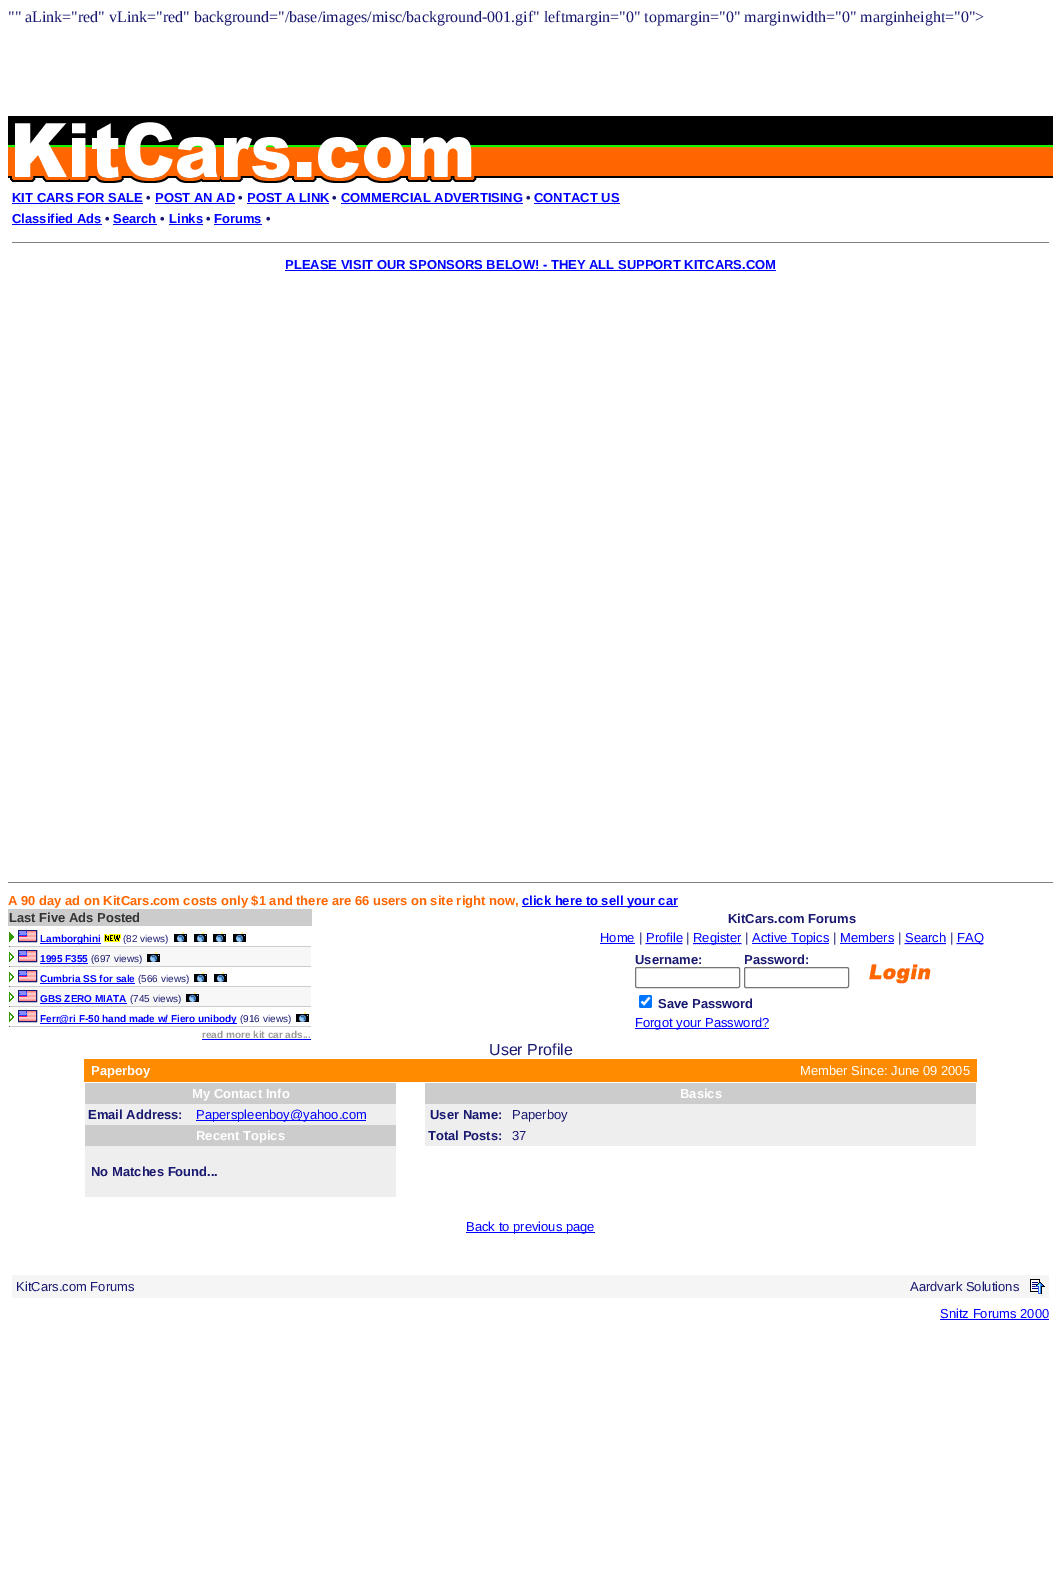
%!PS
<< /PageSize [1061 1575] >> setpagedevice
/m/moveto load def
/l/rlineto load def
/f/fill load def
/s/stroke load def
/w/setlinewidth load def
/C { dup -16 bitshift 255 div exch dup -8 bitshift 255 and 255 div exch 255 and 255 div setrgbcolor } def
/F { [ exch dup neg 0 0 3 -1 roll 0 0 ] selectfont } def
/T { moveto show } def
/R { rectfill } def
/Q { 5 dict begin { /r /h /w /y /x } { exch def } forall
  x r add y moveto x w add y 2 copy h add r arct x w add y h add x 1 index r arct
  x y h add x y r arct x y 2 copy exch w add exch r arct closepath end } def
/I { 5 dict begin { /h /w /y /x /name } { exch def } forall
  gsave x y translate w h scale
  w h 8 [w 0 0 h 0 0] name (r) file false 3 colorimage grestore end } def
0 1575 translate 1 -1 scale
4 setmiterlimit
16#FFFFFF C
0 0 1061 1575 R
/LiberationSerif-Regular 16 F
16#191970 C
("" aLink="red" vLink="red" background="/base/images/misc/background-001.gif" leftmargin="0" topmargin="0" marginwidth="0" marginheight="0">) 8 22 T
(1.rgb) 8 116 1045 70 I
(2.rgb) 10 122 467 61 I
/LiberationSans-Bold 13 F
16#0000FF C
(KIT CARS FOR SALE) 12 202 T
12 203 131 1 R
16#191970 C
(•) 146 202 T
16#0000FF C
(POST AN AD) 155 202 T
155 203 80 1 R
16#191970 C
(•) 238 202 T
16#0000FF C
(POST A LINK) 247 202 T
247 203 82 1 R
16#191970 C
(•) 332 202 T
16#0000FF C
(COMMERCIAL ADVERTISING) 341 202 T
341 203 182 1 R
16#191970 C
(•) 526 202 T
16#0000FF C
(CONTACT US) 534 202 T
534 203 86 1 R
(Classified Ads) 12 223 T
12 224 90 1 R
16#191970 C
(•) 105 223 T
16#0000FF C
(Search) 113 223 T
113 224 44 1 R
16#191970 C
(•) 160 223 T
16#0000FF C
(Links) 169 223 T
169 224 34 1 R
16#191970 C
(•) 206 223 T
16#0000FF C
(Forums) 214 223 T
214 224 48 1 R
16#191970 C
(•) 266 223 T
16#808080 C
12 242 1037 1 R
16#0000FF C
(PLEASE VISIT OUR SPONSORS BELOW! - THEY ALL SUPPORT KITCARS.COM) 285 269 T
285 270 491 1 R
16#808080 C
8 882 1045 1 R
16#FF6600 C
(A 90 day ad on KitCars.com costs only $1 and there are 66 users on site right now,) 8 905 T
16#0000FF C
522 906 156 1 R
(click here to sell your car) 522 905 T
16#CCCCCC C
8 909 304 17 R
16#333333 C
(Last Five Ads Posted) 9 922 T
(3.rgb) 9 932 5 10 I
16#191970 C
18.5 930.5 18 11 rectstroke
(4.rgb) 19 931 17 10 I
16#0000FF C
40 943 61 1 R
/LiberationSans-Bold 10 F
(Lamborghini) 40 942 T
(5.rgb) 104 934 17 8 I
/LiberationSans-Regular 10 F
16#191970 C
(\(82 views\)) 123 942 T
(6.rgb) 174 932 13 10 I
(6.rgb) 194 932 13 10 I
(6.rgb) 213 932 13 10 I
(6.rgb) 233 932 13 10 I
16#CCCCCC C
9 946 302 1 R
16#686868 C
9 946 1 1 R
16#F7F7F7 C
9 947 302 19 R
(7.rgb) 9 952 5 10 I
16#191970 C
18.5 950.5 18 11 rectstroke
(4.rgb) 19 951 17 10 I
/LiberationSans-Bold 10 F
16#0000FF C
(1995 F355) 40 962 T
40 963 48 1 R
/LiberationSans-Regular 10 F
16#191970 C
(\(697 views\)) 91 962 T
(8.rgb) 147 952 13 10 I
16#CCCCCC C
9 966 302 1 R
16#686868 C
9 966 1 1 R
(9.rgb) 9 972 5 10 I
16#191970 C
18.5 970.5 18 11 rectstroke
(4.rgb) 19 971 17 10 I
/LiberationSans-Bold 10 F
16#0000FF C
(Cumbria SS for sale) 40 982 T
40 983 95 1 R
/LiberationSans-Regular 10 F
16#191970 C
(\(566 views\)) 138 982 T
(6.rgb) 194 972 13 10 I
(6.rgb) 214 972 13 10 I
16#CCCCCC C
9 986 302 1 R
16#686868 C
9 986 1 1 R
16#F7F7F7 C
9 987 302 19 R
(7.rgb) 9 992 5 10 I
16#191970 C
18.5 990.5 18 11 rectstroke
(4.rgb) 19 991 17 10 I
/LiberationSans-Bold 10 F
16#0000FF C
(GBS ZERO MIATA) 40 1002 T
40 1003 87 1 R
/LiberationSans-Regular 10 F
16#191970 C
(\(745 views\)) 130 1002 T
(8.rgb) 186 992 13 10 I
16#CCCCCC C
9 1006 302 1 R
16#686868 C
9 1006 1 1 R
(9.rgb) 9 1012 5 10 I
16#191970 C
18.5 1010.5 18 11 rectstroke
(4.rgb) 19 1011 17 10 I
16#0000FF C
40 1023 197 1 R
/LiberationSans-Bold 10 F
(Ferr@ri F-50 hand made w/ Fiero unibody) 40 1022 T
/LiberationSans-Regular 10 F
16#191970 C
(\(916 views\)) 240 1022 T
(6.rgb) 296 1012 13 10 I
16#CCCCCC C
9 1026 302 1 R
16#686868 C
9 1026 1 1 R
/LiberationSans-Bold 10 F
16#999999 C
(read more kit car ads...) 202 1038 T
16#0000FF C
202 1039 109 1 R
/LiberationSans-Bold 13 F
16#191970 C
(KitCars.com Forums) 728 923 T
/LiberationSans-Regular 13 F
16#0000FF C
(Home) 600 942 T
600 943 35 1 R
16#191970 C
(|) 639 942 T
16#0000FF C
(Profile) 646 942 T
[1 1] 0 setdash
645.5 943.5 m 37 0 l s
646 943 36 1 R
16#191970 C
(|) 686 942 T
16#0000FF C
693 943.5 m 48.5 0 l s
693 943 48 1 R
(Register) 693 942 T
16#191970 C
(|) 745 942 T
16#0000FF C
752 943 77 1 R
(Active Topics) 752 942 T
16#191970 C
(|) 833 942 T
16#0000FF C
(Members) 840 942 T
840 943 54 1 R
16#191970 C
(|) 898 942 T
16#0000FF C
(Search) 905 942 T
904.5 943.5 m 41.5 0 l s
905 943 41 1 R
16#191970 C
(|) 950 942 T
16#0000FF C
956.5 943.5 m 27 0 l s
957 943 26 1 R
(FAQ) 957 942 T
/LiberationSans-Bold 13 F
16#191970 C
(Username:) 635 964 T
16#767676 C
[] 0 setdash
635.5 967.5 104 20 1.5 Q s
16#191970 C
(Password:) 744 964 T
16#767676 C
744.5 967.5 104 20 1.5 Q s
(10.rgb) 869 964 62 20 I
16#0075FF C
639 995 13 13 2 Q f
16#FFFFFF C
2.1 w
641.5 1001.5 m 2.5 2.5 l 5.5 -6.5 l s
16#191970 C
(Save Password) 658 1008 T
16#0000FF C
635 1028 134 1 R
/LiberationSans-Regular 13 F
(Forgot your Password?) 635 1027 T
/LiberationSans-Regular 16 F
16#191970 C
(User Profile) 489 1055 T
16#FF8C00 C
84 1059 893 23 R
/LiberationSans-Bold 13 F
16#FFFFFF C
(Paperboy) 91 1075 T
/LiberationSans-Regular 13 F
(Member Since: June 09 2005) 800 1075 T
16#CCCCCC C
85 1083 311 21 R
/LiberationSans-Bold 13 F
16#FFFFFF C
(My Contact Info) 192 1098 T
16#EEEEEE C
85 1104 311 21 R
16#191970 C
(Email Address:) 88 1119 T
16#0000FF C
196 1120 170 1 R
/LiberationSans-Regular 13 F
(Paperspleenboy@yahoo.com) 196 1119 T
16#CCCCCC C
85 1125 311 21 R
/LiberationSans-Bold 13 F
16#FFFFFF C
(Recent Topics) 196 1140 T
16#EEEEEE C
85 1146 311 51 R
16#191970 C
(No Matches Found...) 91 1176 T
16#CCCCCC C
425 1083 551 21 R
16#FFFFFF C
(Basics) 680 1098 T
16#EEEEEE C
425 1104 551 21 R
16#191970 C
(User Name:) 430 1119 T
/LiberationSans-Regular 13 F
(Paperboy) 512 1119 T
16#EEEEEE C
425 1125 551 21 R
/LiberationSans-Bold 13 F
16#191970 C
(Total Posts:) 428 1140 T
/LiberationSans-Regular 13 F
(37) 512 1140 T
16#0000FF C
466 1232 129 1 R
(Back to previous page) 466 1231 T
16#F5F5F5 C
12 1275 1037 23 R
16#191970 C
(KitCars.com Forums) 16 1291 T
(Aardvark Solutions) 910 1291 T
(11.rgb) 1030 1279 15 15 I
16#0000FF C
(Snitz Forums 2000) 940 1318 T
940 1319 109 1 R
showpage
